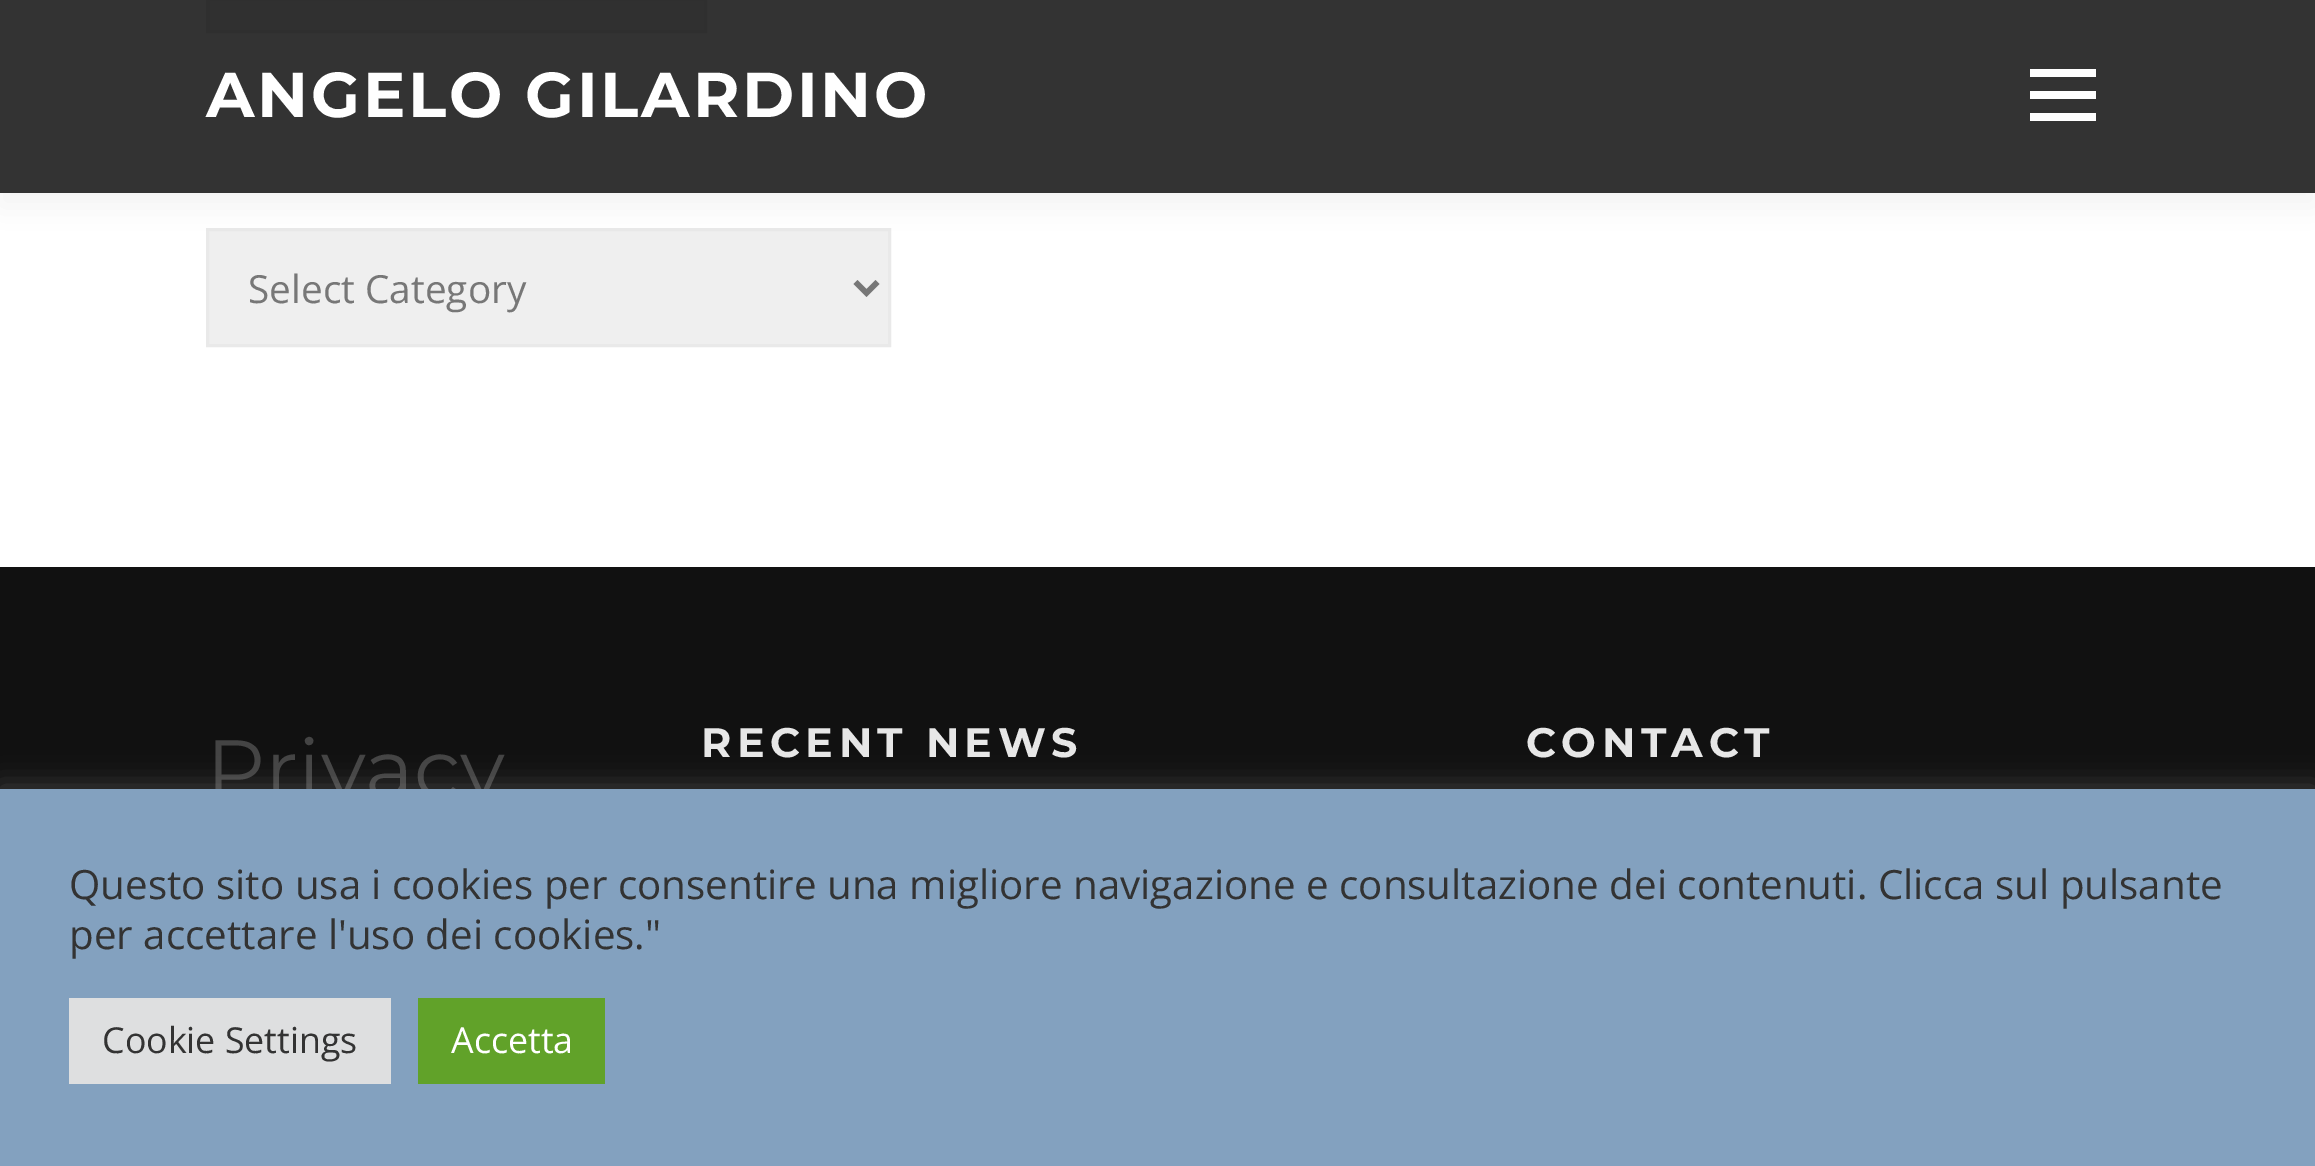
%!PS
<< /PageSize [2315 1166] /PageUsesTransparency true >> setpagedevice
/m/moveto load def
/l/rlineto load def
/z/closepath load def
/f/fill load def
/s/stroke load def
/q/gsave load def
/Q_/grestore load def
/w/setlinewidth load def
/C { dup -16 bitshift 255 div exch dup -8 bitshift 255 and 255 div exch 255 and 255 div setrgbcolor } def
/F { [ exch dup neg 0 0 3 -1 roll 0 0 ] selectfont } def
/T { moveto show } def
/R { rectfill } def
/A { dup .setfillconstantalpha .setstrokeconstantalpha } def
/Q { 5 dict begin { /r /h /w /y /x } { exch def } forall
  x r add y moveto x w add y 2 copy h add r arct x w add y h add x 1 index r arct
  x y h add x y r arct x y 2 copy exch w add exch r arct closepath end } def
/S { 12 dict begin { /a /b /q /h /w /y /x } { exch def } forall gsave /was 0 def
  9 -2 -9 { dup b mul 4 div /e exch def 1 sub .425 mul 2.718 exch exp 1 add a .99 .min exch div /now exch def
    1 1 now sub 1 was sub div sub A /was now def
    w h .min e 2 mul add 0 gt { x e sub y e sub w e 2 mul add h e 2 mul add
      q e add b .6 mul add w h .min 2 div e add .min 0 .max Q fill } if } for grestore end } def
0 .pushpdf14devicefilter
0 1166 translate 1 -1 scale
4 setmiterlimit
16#FFFFFF C
0 0 2315 1166 R
16#EFEFEF C
207.5 -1.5 m 498 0 l 0 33 l -498 0 l z q f Q_
16#E9E9E9 C
3 w
s
16#EFEFEF C
207.5 229.5 m 682 0 l 0 116 l -682 0 l z q f Q_
16#E9E9E9 C
s
q
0 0 m 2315 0 l 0 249 l -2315 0 l z 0 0 m 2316 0 l 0 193 l -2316 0 l z eoclip newpath
16#323232 C
0 14 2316 192 0 14 .06 S
Q_
0.8 A
16#000000 C
0 0 2315 193 R
/Montserrat-Bold 63.25 F
1 A
16#FFFFFF C
206 117 m 2.75 0 (ANGELO GILARDINO) ashow
2030 91 66 8 R
2030 69 66 8 R
2030 113 66 8 R
16#777777 C
5.5 w
855.5 282 m 11 11 l 11 -11 l s
/OpenSans-Regular 38.75 F
(Select Category) 248 303 T
16#111111 C
0 567 2315 222 R
/Montserrat-Regular 82.5 F
16#444444 C
(Privacy) 206 798 T
/Montserrat-Bold 41.25 F
16#E7E7E7 C
701 757 m 5.5 0 (RECENT NEWS) ashow
1526 757 m 5.5 0 (CONTACT) ashow
16#ACABAB C
0 787 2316 376 0 14 .3 S
16#83A1BF C
0 789 2315 377 R
/OpenSans-Regular 40.33 F
16#333333 C
(Questo sito usa i cookies per consentire una migliore navigazione e consultazione dei contenuti. Clicca sul pulsante) 69 899 T
(per accettare l'uso dei cookies.") 69 949 T
16#DEDFE0 C
69 998 322 86 R
/OpenSans-Regular 35.75 F
16#333333 C
(Cookie Settings) 102 1053 T
16#61A229 C
418 998 187 86 R
16#FFFFFF C
(Accetta) 451 1053 T
.poppdf14devicefilter showpage
